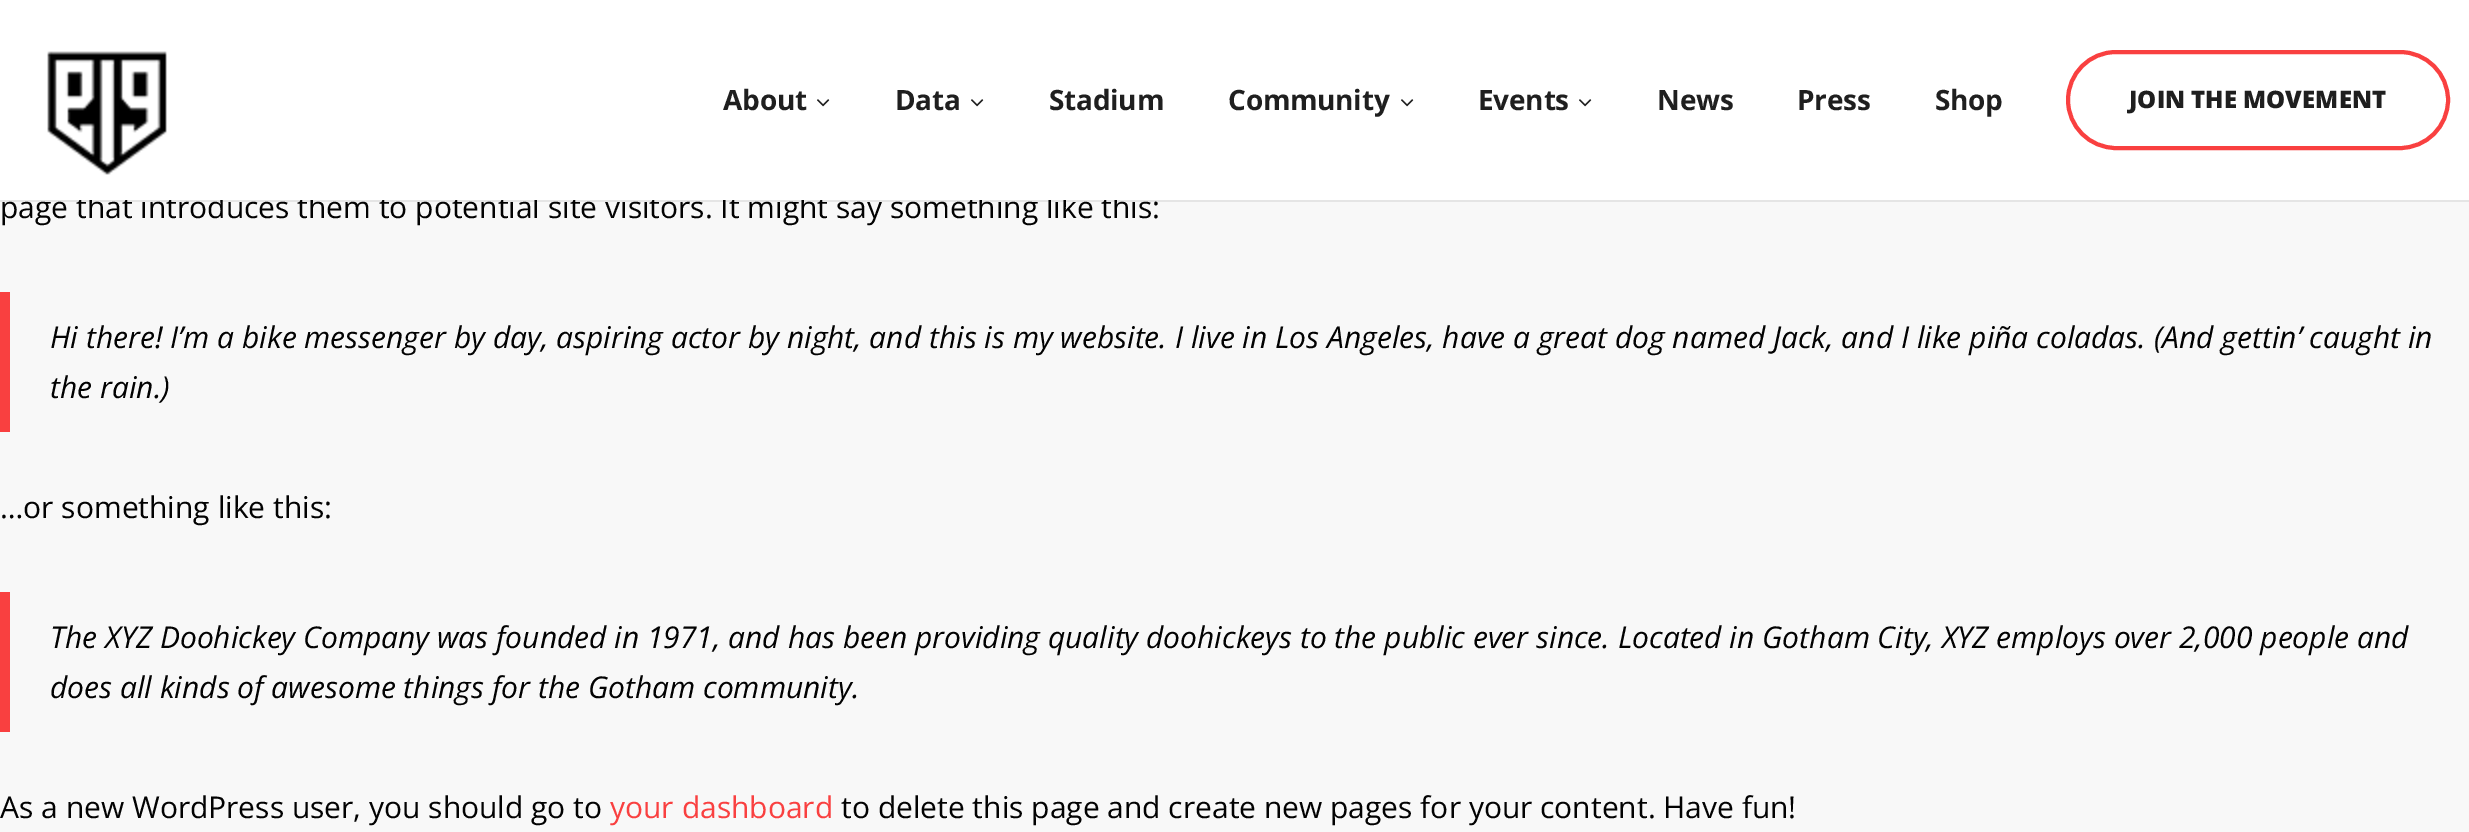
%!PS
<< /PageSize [2469 832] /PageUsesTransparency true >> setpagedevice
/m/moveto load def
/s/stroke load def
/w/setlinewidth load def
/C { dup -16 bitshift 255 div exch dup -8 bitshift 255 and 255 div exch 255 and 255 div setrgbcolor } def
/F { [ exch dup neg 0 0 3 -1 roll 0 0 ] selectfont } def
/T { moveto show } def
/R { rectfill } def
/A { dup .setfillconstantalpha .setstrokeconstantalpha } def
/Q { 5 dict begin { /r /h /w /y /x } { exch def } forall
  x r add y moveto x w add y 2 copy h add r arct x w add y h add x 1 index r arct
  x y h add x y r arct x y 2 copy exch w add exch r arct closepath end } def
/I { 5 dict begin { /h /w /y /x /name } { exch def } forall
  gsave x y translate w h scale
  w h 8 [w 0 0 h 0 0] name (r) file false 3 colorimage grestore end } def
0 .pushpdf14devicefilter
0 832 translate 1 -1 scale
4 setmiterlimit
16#F8F8F8 C
0 0 2469 832 R
0.08 A
16#000000 C
0 200 2469 2 R
/OpenSans-Regular 30 F
1 A
16#020202 C
(page that introduces them to potential site visitors. It might say something like this:) 0 218 T
16#FFFFFF C
0 0 2469 200 R
(1.rgb) 47 51 120 124 I
/OpenSans-Bold 28 F
16#1F1F1F C
723 110 m -.25 0 (About) ashow
(2.rgb) 817 99 13 8 I
895 110 m -.25 0 (Data) ashow
(2.rgb) 971 99 13 8 I
1049 110 m -.25 0 (Stadium) ashow
1228 110 m -.25 0 (Community) ashow
(2.rgb) 1401 99 13 8 I
1478 110 m -.25 0 (Events) ashow
(2.rgb) 1579 99 13 8 I
1657 110 m -.25 0 (News) ashow
1797 110 m -.25 0 (Press) ashow
1935 110 m -.25 0 (Shop) ashow
16#F94040 C
4 w
2068 52 380 96 48 Q s
/OpenSans-ExtraBold 24 F
16#1F1F1F C
(JOIN THE MOVEMENT) 2129 108 T
16#F94040 C
0 292 10 140 R
/OpenSans-Italic 30 F
16#020202 C
(Hi there! I’m a bike messenger by day, aspiring actor by night, and this is my website. I live in Los Angeles, have a great dog named Jack, and I like piña coladas. \(And gettin’ caught in) 50 348 T
(the rain.\)) 50 398 T
/OpenSans-Regular 30 F
(…or something like this:) 0 518 T
16#F94040 C
0 592 10 140 R
/OpenSans-Italic 30 F
16#020202 C
(The XYZ Doohickey Company was founded in 1971, and has been providing quality doohickeys to the public ever since. Located in Gotham City, XYZ employs over 2,000 people and) 50 648 T
(does all kinds of awesome things for the Gotham community.) 50 698 T
/OpenSans-Regular 30 F
(As a new WordPress user, you should go to) 0 818 T
16#F94040 C
(your dashboard) 610 818 T
16#020202 C
(to delete this page and create new pages for your content. Have fun!) 841 818 T
.poppdf14devicefilter showpage
